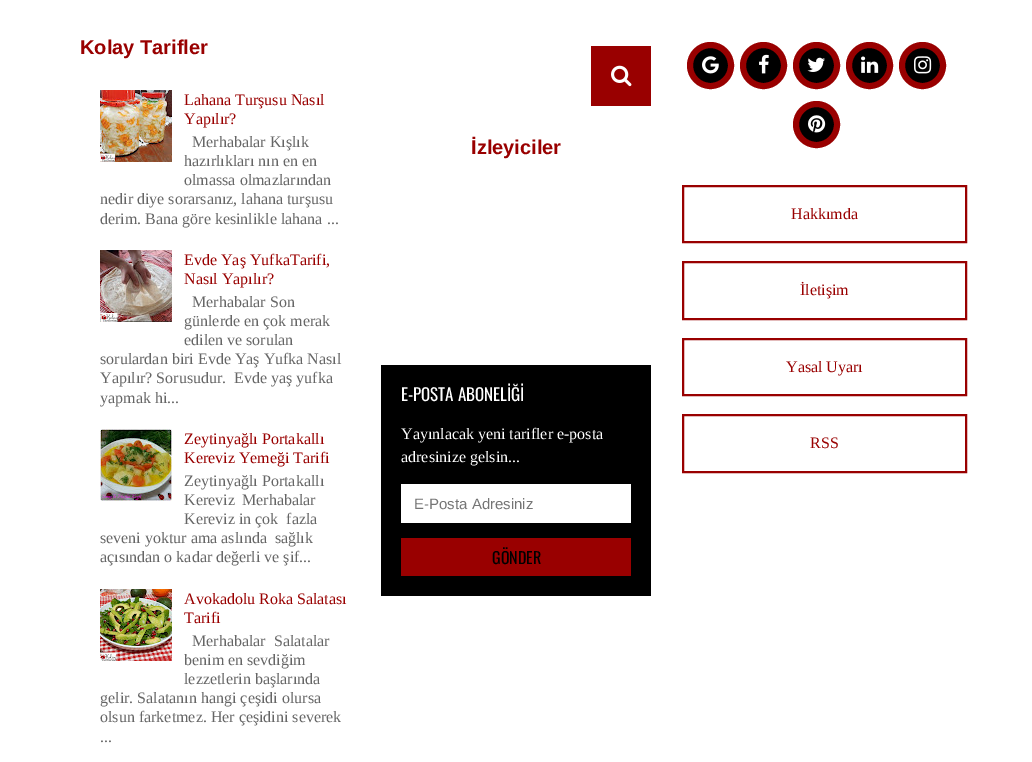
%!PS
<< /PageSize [1032 762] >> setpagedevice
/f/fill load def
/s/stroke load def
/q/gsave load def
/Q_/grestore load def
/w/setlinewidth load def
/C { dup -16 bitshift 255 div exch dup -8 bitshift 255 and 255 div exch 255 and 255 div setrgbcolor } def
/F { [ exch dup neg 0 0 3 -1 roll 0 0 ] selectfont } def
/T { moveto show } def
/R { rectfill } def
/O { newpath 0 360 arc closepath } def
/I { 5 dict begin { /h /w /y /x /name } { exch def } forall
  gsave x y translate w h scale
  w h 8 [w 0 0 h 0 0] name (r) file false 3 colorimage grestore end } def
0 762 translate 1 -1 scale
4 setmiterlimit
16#FFFFFF C
0 0 1032 762 R
/LiberationSans-Bold 20 F
16#990000 C
(Kolay Tarifler) 80 54 T
(1.rgb) 100 90 72 72 I
/LiberationSerif-Regular 16 F
(Lahana Turşusu Nasıl) 184 105 T
(Yapılır?) 184 124 T
16#666666 C
(Merhabalar Kışlık) 192 147 T
(hazırlıkları nın en en) 184 166 T
(olmassa olmazlarından) 184 185 T
(nedir diye sorarsanız, lahana turşusu) 100 204 T
(derim. Bana göre kesinlikle lahana ...) 100 224 T
(2.rgb) 100 250 72 72 I
16#990000 C
(Evde Yaş YufkaTarifi,) 184 265 T
(Nasıl Yapılır?) 184 284 T
16#666666 C
(Merhabalar Son) 192 307 T
(günlerde en çok merak) 184 326 T
(edilen ve sorulan) 184 345 T
(sorulardan biri Evde Yaş Yufka Nasıl) 100 364 T
(Yapılır? Sorusudur.  Evde yaş yufka) 100 383 T
(yapmak hi...) 100 403 T
(3.rgb) 100 429 72 72 I
16#990000 C
(Zeytinyağlı Portakallı) 184 444 T
(Kereviz Yemeği Tarifi) 184 463 T
16#666666 C
(Zeytinyağlı Portakallı) 184 486 T
(Kereviz) 184 505 T
(Merhabalar) 242 505 T
(Kereviz in çok  fazla) 184 524 T
(seveni yoktur ama aslında  sağlık) 100 543 T
(açısından o kadar değerli ve şif...) 100 562 T
(4.rgb) 100 589 72 72 I
16#990000 C
(Avokadolu Roka Salatası) 184 604 T
(Tarifi) 184 623 T
16#666666 C
(Merhabalar  Salatalar) 192 646 T
(benim en sevdiğim) 184 665 T
(lezzetlerin başlarında) 184 684 T
(gelir. Salatanın hangi çeşidi olursa) 100 703 T
(olsun farketmez. Her çeşidini severek) 100 722 T
(...) 100 742 T
16#990000 C
591 46 60 60 R
(5.rgb) 611 65 21 22 I
/LiberationSans-Bold 20 F
(İzleyiciler) 471 154 T
16#000000 C
381 365 270 231 R
/Oswald-Regular 17 F
16#FFFFFF C
(E-POSTA ABONELİĞİ) 401 401 T
/LiberationSerif-Regular 16 F
(Yayınlacak yeni tarifler e-posta) 401 439 T
(adresinize gelsin...) 401 462 T
401 484 230 39 R
/LiberationSans-Regular 15 F
16#757575 C
(E-Posta Adresiniz) 414 509 T
16#990000 C
401 538 230 38 R
/Oswald-Regular 16 F
16#000000 C
(GÖNDER) 492 564 T
710.5 65.5 20.5 O q f Q_
16#990000 C
6 w
s
(6.rgb) 702 56 17 18 I
16#000000 C
763.5 65.5 20.5 O q f Q_
16#990000 C
s
(7.rgb) 759 54 10 20 I
16#000000 C
816.5 65.5 20.5 O q f Q_
16#990000 C
s
(8.rgb) 807 57 18 15 I
16#000000 C
869.5 65.5 20.5 O q f Q_
16#990000 C
s
(9.rgb) 861 56 18 17 I
16#000000 C
922.5 65.5 20.5 O q f Q_
16#990000 C
s
(10.rgb) 914 56 18 18 I
16#000000 C
816.5 124.5 20.5 O q f Q_
16#990000 C
s
(11.rgb) 808 115 18 18 I
2 w
683 186 283 56 rectstroke
/LiberationSerif-Regular 16 F
(Hakkımda) 791 219 T
683 262 283 57 rectstroke
(İletişim) 800 295 T
683 339 283 56 rectstroke
(Yasal Uyarı) 786 372 T
683 415 283 57 rectstroke
(RSS) 810 448 T
showpage
